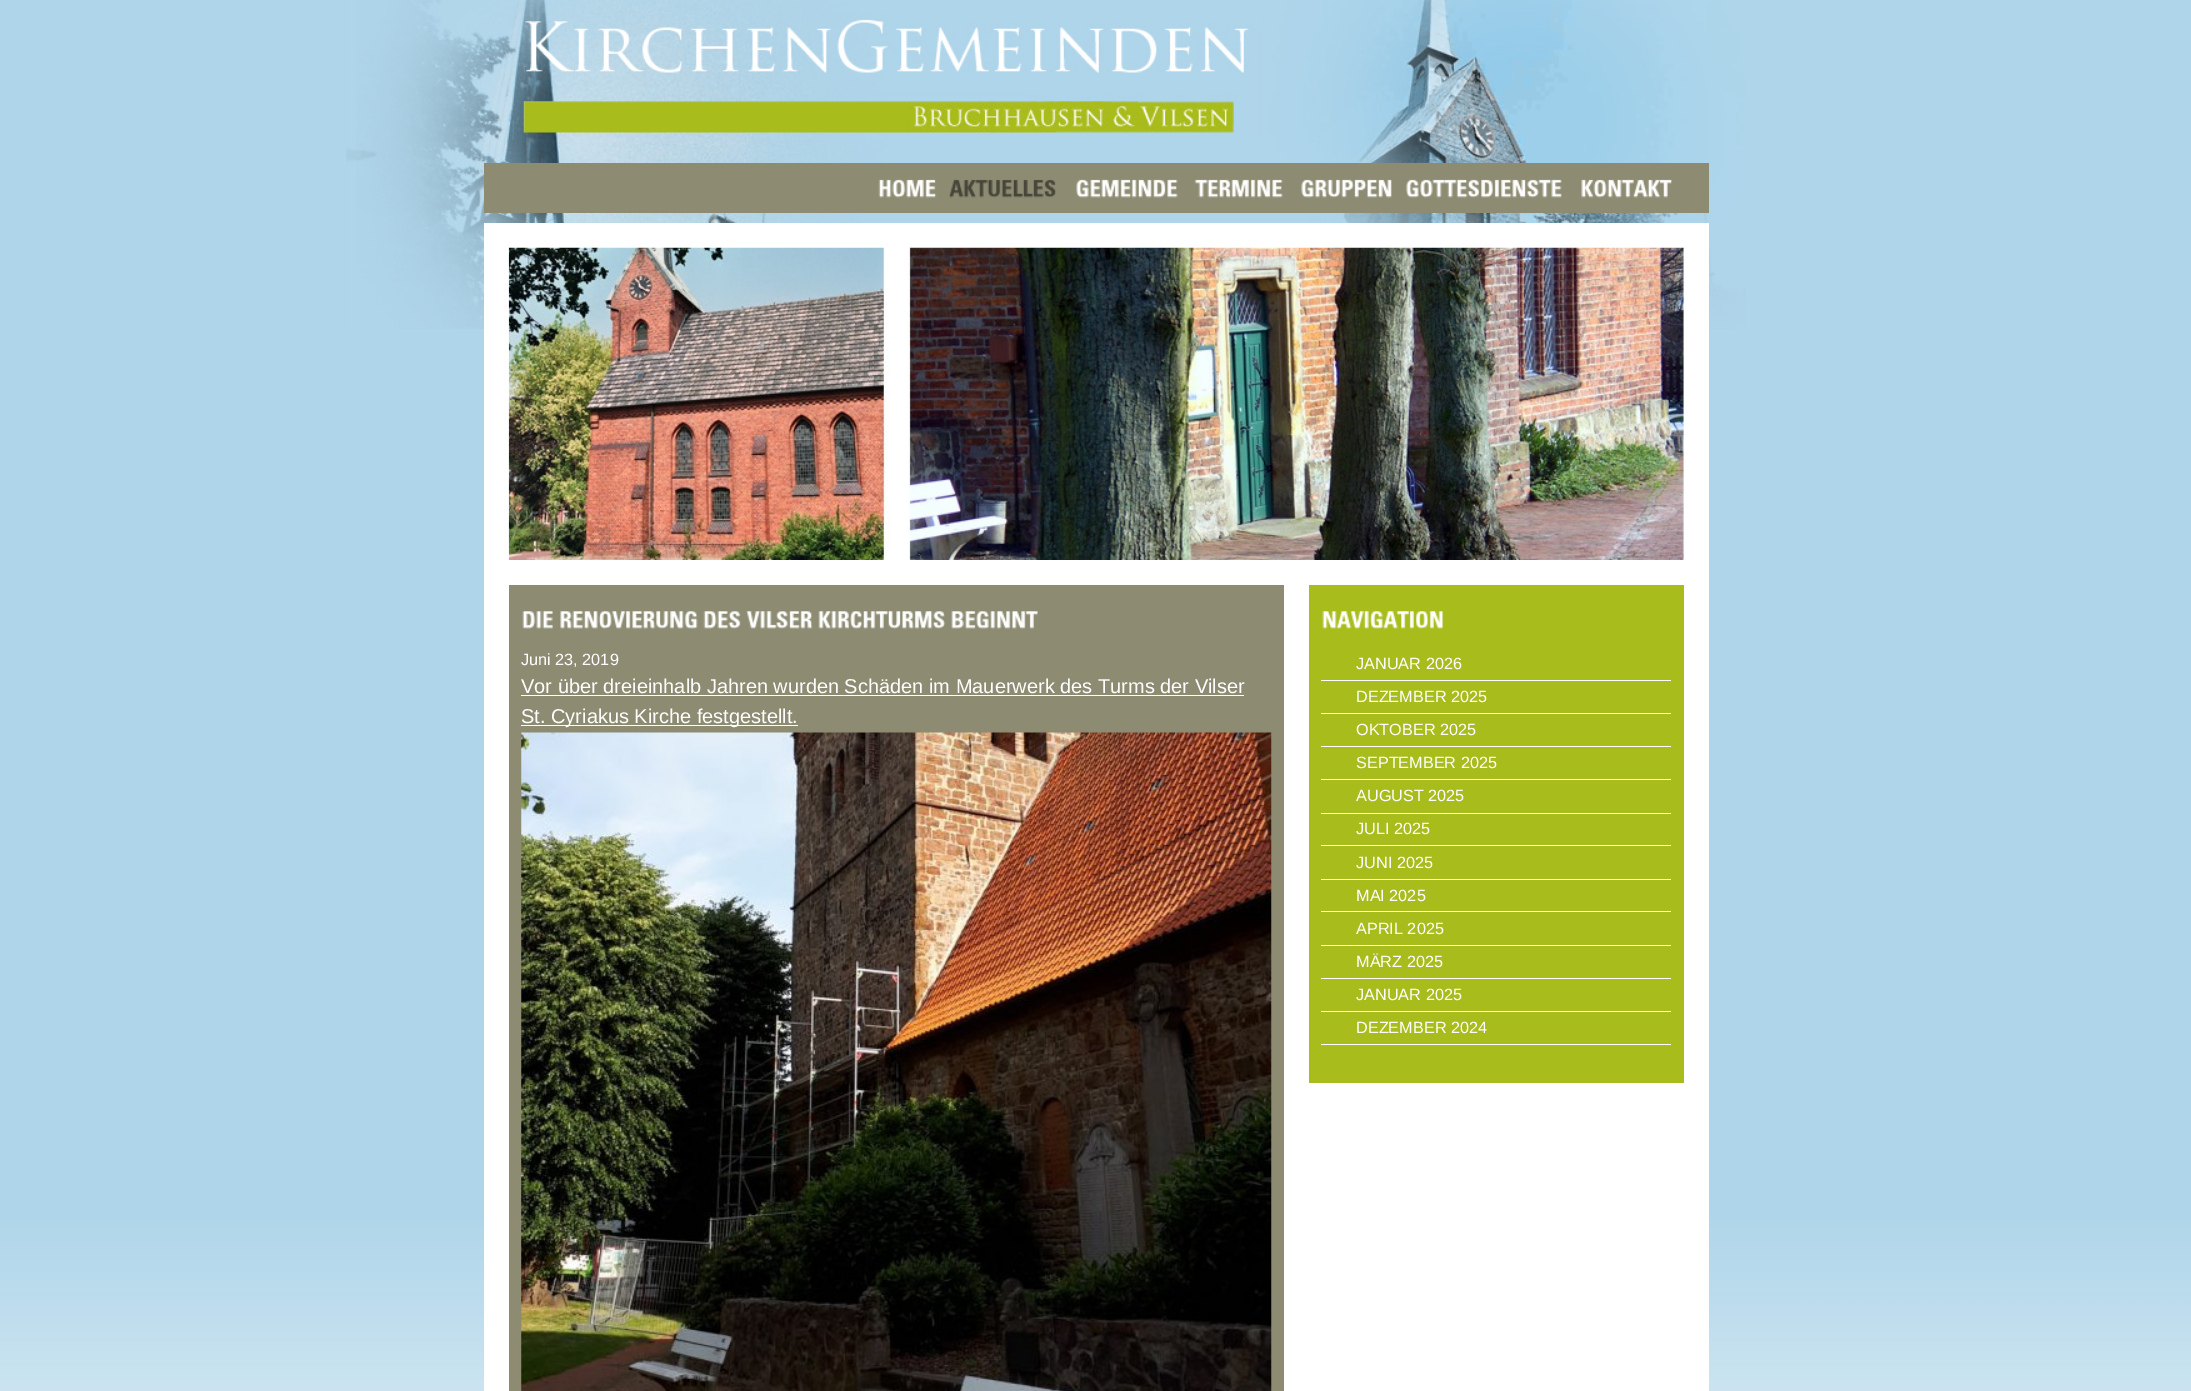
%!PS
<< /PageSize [2191 1391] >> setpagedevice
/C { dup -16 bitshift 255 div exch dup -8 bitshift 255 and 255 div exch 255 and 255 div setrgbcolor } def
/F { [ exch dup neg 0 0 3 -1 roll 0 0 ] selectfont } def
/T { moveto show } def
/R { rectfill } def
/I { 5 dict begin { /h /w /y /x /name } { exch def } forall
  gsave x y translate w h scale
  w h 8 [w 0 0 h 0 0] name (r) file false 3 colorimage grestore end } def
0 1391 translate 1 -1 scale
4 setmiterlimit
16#FFFFFF C
0 0 2191 1391 R
(1.rgb) 0 0 2191 1391 I
(2.rgb) 346 0 1400 329 I
16#8D8C73 C
484 163 1225 50 R
(3.rgb) 878 179 59 19 I
(4.rgb) 949 179 107 19 I
(5.rgb) 1076 179 102 19 I
(6.rgb) 1194 179 89 19 I
(7.rgb) 1301 179 91 19 I
(8.rgb) 1406 179 156 19 I
(9.rgb) 1581 179 91 19 I
16#FFFFFF C
484 223 1225 1168 R
(10.rgb) 508 247 1176 313 I
16#8D8C73 C
509 585 775 806 R
(11.rgb) 522 611 31 18 I
(12.rgb) 560 611 138 18 I
(13.rgb) 703 611 38 18 I
(14.rgb) 746 611 67 18 I
(15.rgb) 818 611 128 18 I
(16.rgb) 951 611 87 18 I
/LiberationSans-Regular 16.25 F
16#FFFFFF C
(Juni 23, 2019) 521 665 T
/LiberationSans-Regular 20 F
(Vor über dreieinhalb Jahren wurden Schäden im Mauerwerk des Turms der Vilser) 521 693 T
521 695 723 1 R
521 725 277 1 R
(St. Cyriakus Kirche festgestellt.) 521 723 T
(17.rgb) 521 732 751 659 I
16#A8BC1C C
1309 585 375 498 R
(18.rgb) 1322 611 121 18 I
16#FFFFFF C
1321 680 350 1 R
/LiberationSans-Regular 16.25 F
(JANUAR 2026) 1356 669 T
1321 713 350 1 R
(DEZEMBER 2025) 1356 702 T
1321 746 350 1 R
(OKTOBER 2025) 1356 735 T
1321 779 350 1 R
(SEPTEMBER 2025) 1356 768 T
1321 813 350 1 R
(AUGUST 2025) 1356 801 T
1321 845 350 1 R
(JULI 2025) 1356 834 T
1321 879 350 1 R
(JUNI 2025) 1356 868 T
1321 911 350 1 R
(MAI 2025) 1356 901 T
1321 945 350 1 R
(APRIL 2025) 1356 934 T
1321 978 350 1 R
(MÄRZ 2025) 1356 967 T
1321 1011 350 1 R
(JANUAR 2025) 1356 1000 T
1321 1044 350 1 R
(DEZEMBER 2024) 1356 1033 T
showpage
